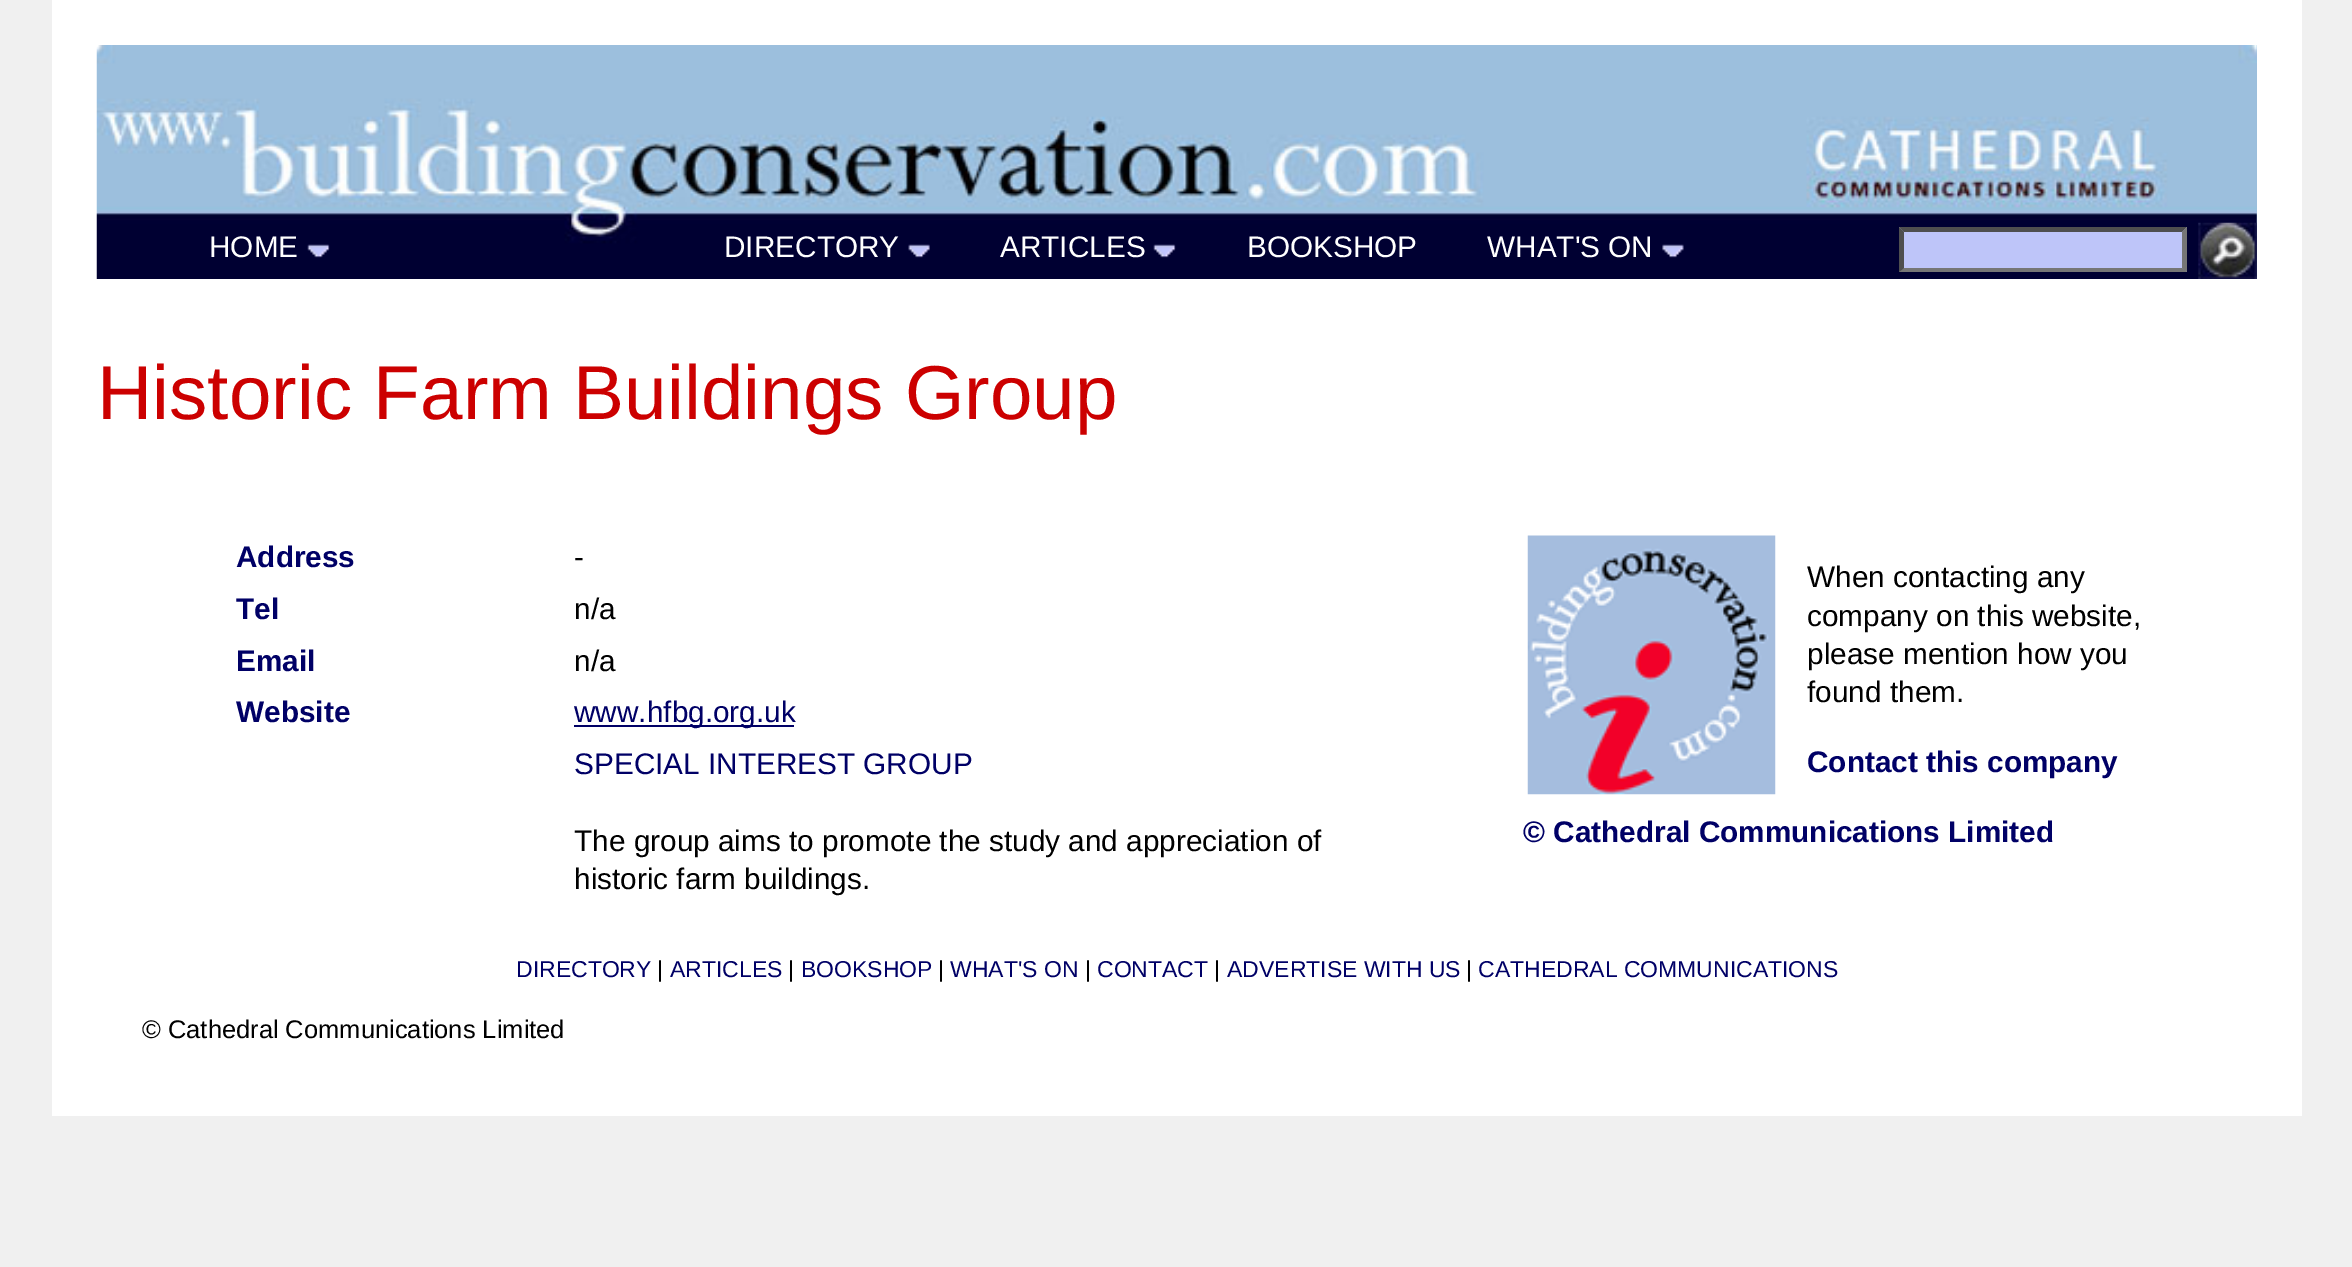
%!PS
<< /PageSize [2352 1267] >> setpagedevice
/m/moveto load def
/l/rlineto load def
/z/closepath load def
/f/fill load def
/C { dup -16 bitshift 255 div exch dup -8 bitshift 255 and 255 div exch 255 and 255 div setrgbcolor } def
/F { [ exch dup neg 0 0 3 -1 roll 0 0 ] selectfont } def
/T { moveto show } def
/R { rectfill } def
/I { 5 dict begin { /h /w /y /x /name } { exch def } forall
  gsave x y translate w h scale
  w h 8 [w 0 0 h 0 0] name (r) file false 3 colorimage grestore end } def
0 1267 translate 1 -1 scale
4 setmiterlimit
16#F0F0F0 C
0 0 2352 1267 R
16#FFFFFF C
52 0 2250 1116 R
(1.rgb) 96 45 2161 234 I
/LiberationSans-Regular 29.75 F
(HOME) 209 257 T
(2.rgb) 307 244 23 14 I
(DIRECTORY) 724 257 T
(3.rgb) 908 244 22 14 I
(ARTICLES) 1000 257 T
(2.rgb) 1153 244 23 14 I
(BOOKSHOP) 1247 257 T
(WHAT'S ON) 1487 257 T
(4.rgb) 1662 244 22 14 I
16#BEC5F9 C
1899 227 288 45 R
16#4F4F4F C
1899 227 m 288 0 l -5 5 l -278 0 l z f
16#767676 C
2187 227 m 0 45 l -5 -4 l 0 -36 l z f
2187 272 m -288 0 l 5 -4 l 278 0 l z f
16#4F4F4F C
1899 272 m 0 -45 l 5 5 l 0 36 l z f
(5.rgb) 2198 222 59 57 I
/LiberationSans-Regular 76.5 F
16#CC0000 C
(Historic Farm Buildings Group) 97 419 T
/LiberationSans-Bold 29.75 F
16#000066 C
(Address) 236 567 T
/LiberationSans-Regular 29.75 F
16#000000 C
(-) 574 567 T
/LiberationSans-Bold 29.75 F
16#000066 C
(Tel) 236 619 T
/LiberationSans-Regular 29.75 F
16#000000 C
(n/a) 574 619 T
/LiberationSans-Bold 29.75 F
16#000066 C
(Email) 236 671 T
/LiberationSans-Regular 29.75 F
16#000000 C
(n/a) 574 671 T
/LiberationSans-Bold 29.75 F
16#000066 C
(Website) 236 722 T
574 725 220 2 R
/LiberationSans-Regular 29.75 F
(www.hfbg.org.uk) 574 722 T
(SPECIAL INTEREST GROUP) 574 774 T
16#000000 C
(The group aims to promote the study and appreciation of) 574 851 T
(historic farm buildings.) 574 889 T
(6.rgb) 1527 535 249 260 I
(When contacting any) 1807 587 T
(company on this website,) 1807 626 T
(please mention how you) 1807 664 T
(found them.) 1807 702 T
/LiberationSans-Bold 29.75 F
16#000066 C
(Contact this company) 1807 772 T
(© Cathedral Communications Limited) 1523 842 T
/LiberationSans-Regular 23 F
(DIRECTORY) 516 977 T
16#000000 C
(|) 657 977 T
16#000066 C
(ARTICLES) 670 977 T
16#000000 C
(|) 788 977 T
16#000066 C
(BOOKSHOP) 801 977 T
16#000000 C
(|) 938 977 T
16#000066 C
(WHAT'S ON) 950 977 T
16#000000 C
(|) 1085 977 T
16#000066 C
(CONTACT) 1097 977 T
16#000000 C
(|) 1214 977 T
16#000066 C
(ADVERTISE WITH US) 1227 977 T
16#000000 C
(|) 1466 977 T
16#000066 C
(CATHEDRAL COMMUNICATIONS) 1478 977 T
/LiberationSans-Regular 25.5 F
16#000000 C
(© Cathedral Communications Limited) 142 1038 T
showpage
